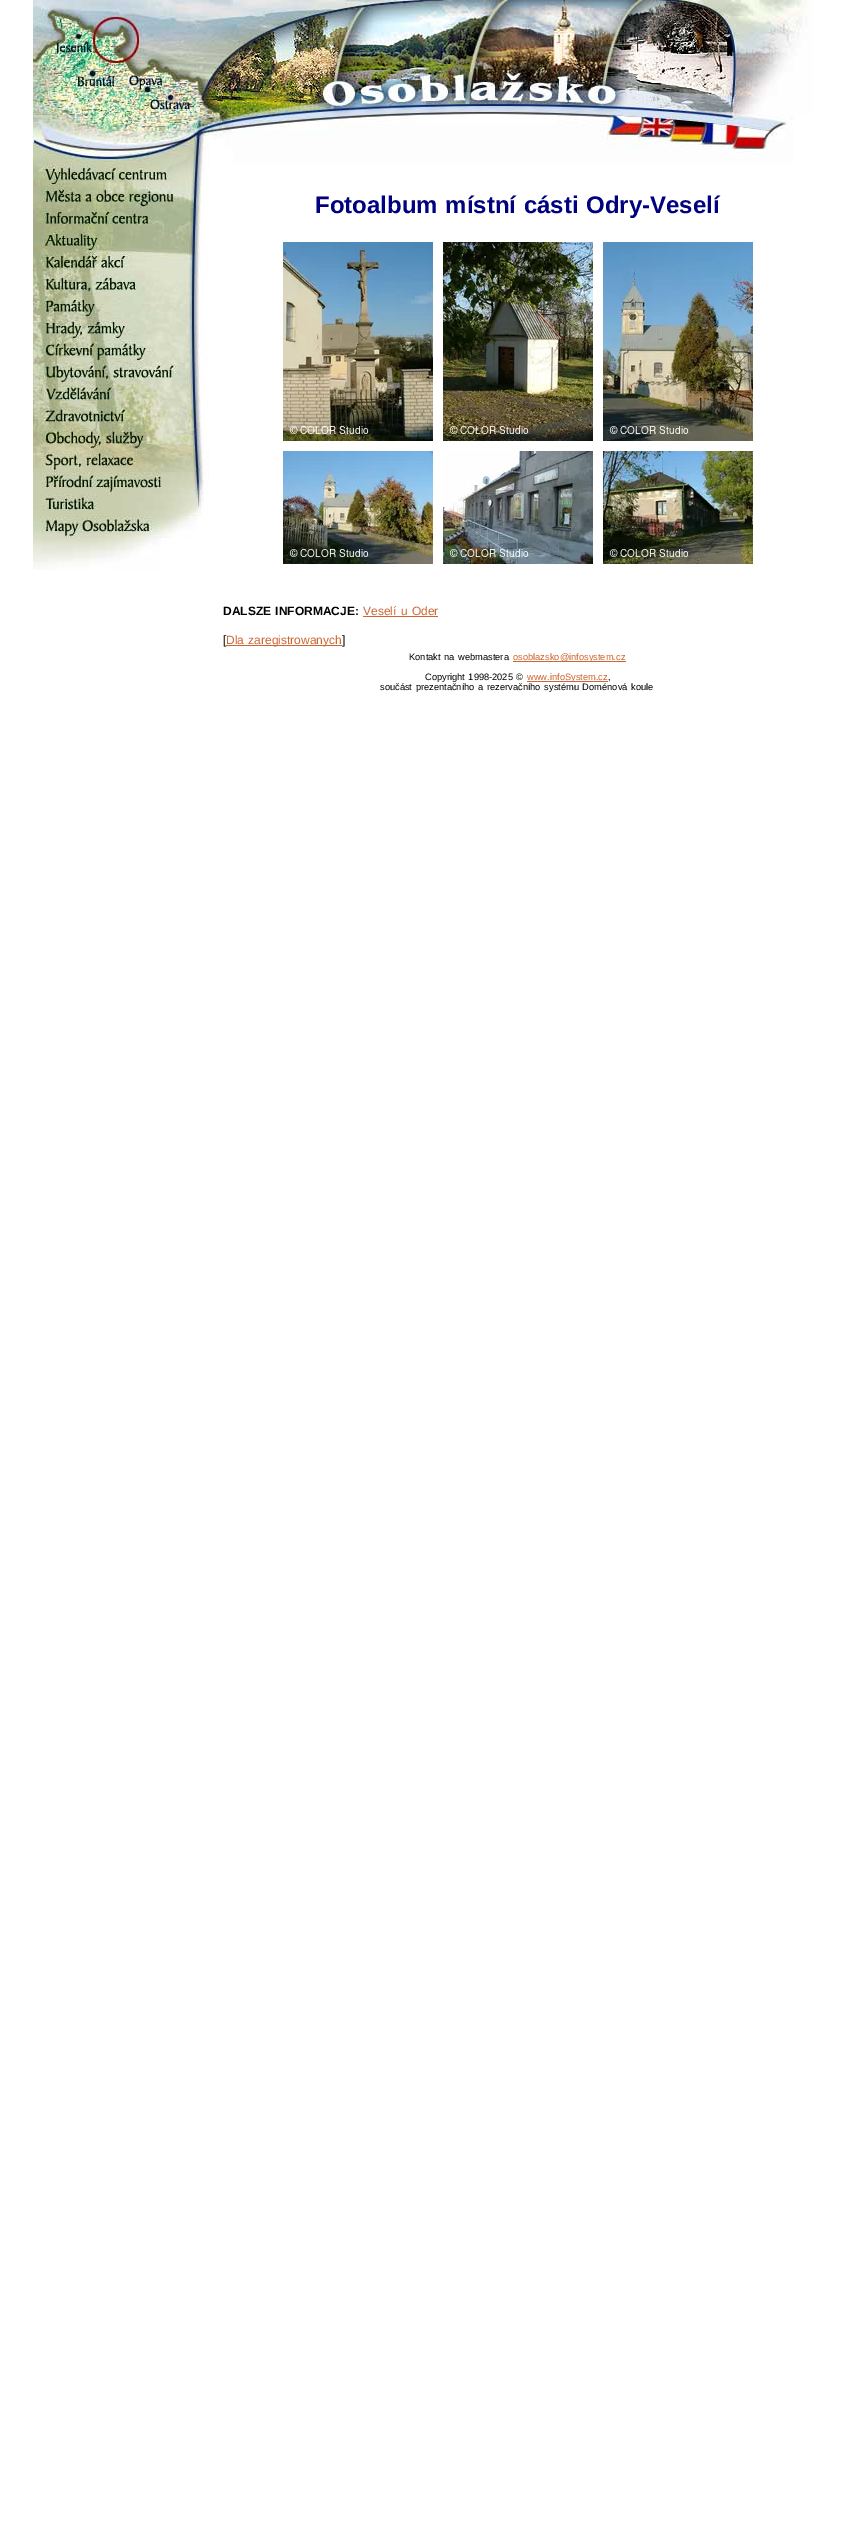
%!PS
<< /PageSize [845 2539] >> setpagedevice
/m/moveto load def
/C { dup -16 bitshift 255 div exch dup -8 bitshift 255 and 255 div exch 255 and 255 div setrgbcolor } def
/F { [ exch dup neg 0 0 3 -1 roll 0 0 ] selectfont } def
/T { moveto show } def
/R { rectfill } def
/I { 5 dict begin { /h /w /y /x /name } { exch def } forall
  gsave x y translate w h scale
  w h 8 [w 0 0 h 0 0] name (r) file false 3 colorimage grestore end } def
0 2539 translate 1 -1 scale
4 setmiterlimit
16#FFFFFF C
0 0 845 2539 R
(1.rgb) 33 0 780 115 I
(2.rgb) 33 115 760 49 I
(3.rgb) 33 164 176 22 I
(4.rgb) 33 186 172 22 I
(5.rgb) 33 208 168 22 I
(6.rgb) 33 230 172 22 I
(7.rgb) 33 252 176 22 I
(8.rgb) 33 274 171 22 I
(9.rgb) 33 296 171 22 I
(10.rgb) 33 318 171 22 I
(11.rgb) 33 340 176 22 I
(12.rgb) 33 362 172 22 I
(13.rgb) 33 384 176 22 I
(14.rgb) 33 406 172 22 I
(15.rgb) 33 428 172 22 I
(16.rgb) 33 450 176 22 I
(17.rgb) 33 472 176 22 I
(18.rgb) 33 494 176 22 I
(19.rgb) 33 516 165 22 I
(20.rgb) 33 538 128 32 I
/LiberationSans-Bold 24 F
16#000080 C
315 213 m 1 0 32 (Fotoalbum místní cásti Odry-Veselí) widthshow
(21.rgb) 283 242 150 199 I
(22.rgb) 443 242 150 199 I
(23.rgb) 603 242 150 199 I
(24.rgb) 283 451 150 113 I
(25.rgb) 443 451 150 113 I
(26.rgb) 603 451 150 113 I
/LiberationSans-Bold 12 F
16#000000 C
223 615 m 1 0 32 (DALSZE INFORMACJE:) widthshow
/LiberationSans-Regular 12 F
16#CC6633 C
363 615 m 1 0 32 (Veselí u Oder) widthshow
363 616 75 1 R
16#000000 C
([) 223 644 T
16#CC6633 C
226 645 116 1 R
226 644 m 1 0 32 (Dla zaregistrowanych) widthshow
16#000000 C
(]) 342 644 T
/LiberationSans-Regular 9.3 F
409 660 m 1 0 32 (Kontakt na webmastera) widthshow
16#CC6633 C
513 661 113 1 R
(osoblazsko@infosystem.cz) 513 660 T
16#000000 C
425 680 m 1 0 32 (Copyright 1998-2025 ©) widthshow
16#CC6633 C
527 681 81 1 R
(www.infoSystem.cz) 527 680 T
16#000000 C
(,) 608 680 T
380 690 m 1 0 32 (součást prezentačního a rezervačního systému Doménová koule) widthshow
showpage
